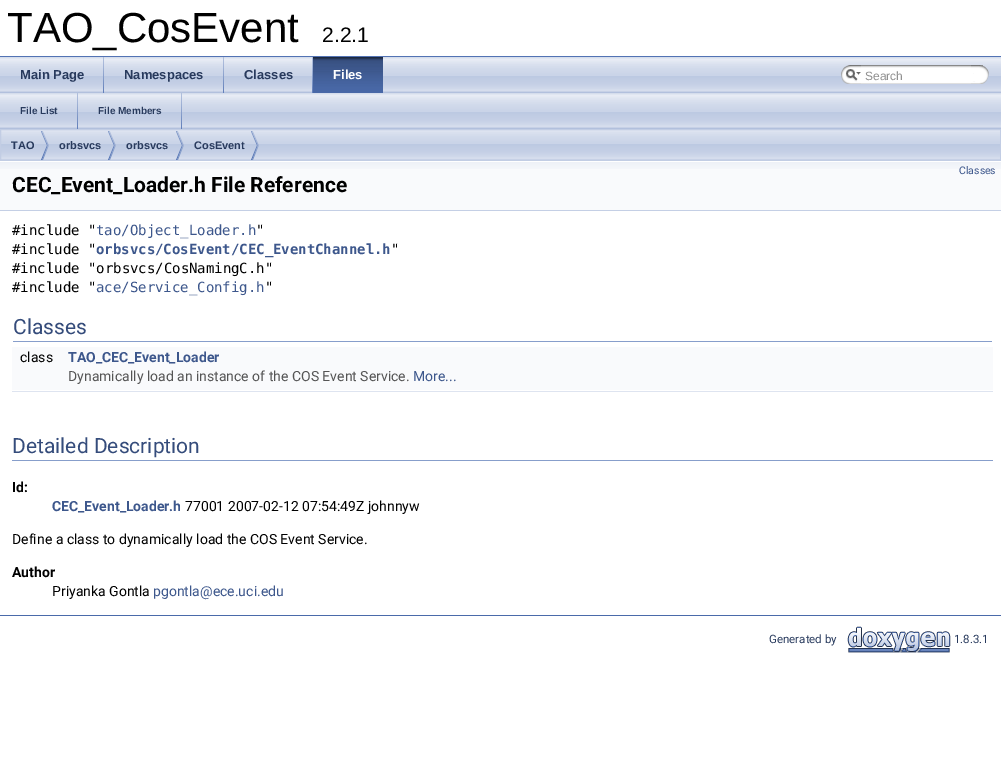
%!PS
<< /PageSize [1001 781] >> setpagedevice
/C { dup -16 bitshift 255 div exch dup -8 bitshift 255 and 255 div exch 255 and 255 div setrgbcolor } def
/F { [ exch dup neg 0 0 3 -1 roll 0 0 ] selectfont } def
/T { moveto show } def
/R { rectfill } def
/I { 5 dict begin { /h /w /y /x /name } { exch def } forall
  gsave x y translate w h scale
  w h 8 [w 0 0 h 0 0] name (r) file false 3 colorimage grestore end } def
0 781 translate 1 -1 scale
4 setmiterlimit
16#FFFFFF C
0 0 1001 781 R
16#5373B4 C
0 56 1001 1 R
/LiberationSans-Regular 42 F
16#000000 C
(TAO_CosEvent) 7 42 T
/LiberationSans-Regular 21 F
(2.2.1) 322 42 T
(1.rgb) 0 57 1001 36 I
(2.rgb) 103 57 1 36 I
/LiberationSans-Bold 13 F
16#283A5D C
(Main Page) 20 79 T
(2.rgb) 223 57 1 36 I
(Namespaces) 124 79 T
(2.rgb) 312 57 1 36 I
(Classes) 244 79 T
(3.rgb) 313 57 70 36 I
16#FFFFFF C
(Files) 333 79 T
(4.rgb) 841 65 20 19 I
(5.rgb) 846 69 15 12 I
(6.rgb) 861 65 122 19 I
/LiberationSans-Regular 12 F
16#909090 C
(Search) 865 80 T
(7.rgb) 971 65 18 19 I
(1.rgb) 0 93 1001 36 I
(2.rgb) 77 93 1 36 I
/LiberationSans-Bold 10 F
16#283A5D C
(File List) 20 114 T
(2.rgb) 181 93 1 36 I
(File Members) 98 114 T
(8.rgb) 1 130 999 30 I
16#C2CDE4 C
.5 129.5 1000 31 rectstroke
(9.rgb) 41 131 8 29 I
/LiberationSans-Bold 11 F
16#283A5D C
(TAO) 11 149 T
(9.rgb) 108 131 8 29 I
(orbsvcs) 59 149 T
(9.rgb) 176 131 8 29 I
(orbsvcs) 126 149 T
(9.rgb) 251 131 8 29 I
(CosEvent) 194 149 T
16#F9FAFC C
0 169 1001 41 R
(10.rgb) 0 161 1001 8 I
16#C4CFE5 C
0 210 1001 1 R
/Roboto-Regular 10.5 F
16#3D578C C
(Classes) 959 174 T
/Roboto-Bold 21 F
16#000000 C
(CEC_Event_Loader.h File Reference) 12 192 T
/DejaVuSansMono-Regular 14 F
(#include ") 12 235 T
16#3D578C C
(tao/Object_Loader.h) 96 235 T
16#000000 C
(") 256 235 T
(#include ") 12 254 T
/DejaVuSansMono-Bold 14 F
16#3D578C C
(orbsvcs/CosEvent/CEC_EventChannel.h) 96 254 T
/DejaVuSansMono-Regular 14 F
16#000000 C
(") 391 254 T
(#include "orbsvcs/CosNamingC.h") 12 273 T
(#include ") 12 292 T
16#3D578C C
(ace/Service_Config.h) 96 292 T
16#000000 C
(") 265 292 T
16#879ECB C
13 341 979 1 R
/Roboto-Regular 21 F
16#354C7B C
(Classes) 13 334 T
16#F9FAFC C
12 347 981 20 R
/Roboto-Regular 14 F
16#000000 C
(class) 20 362 T
/Roboto-Bold 14 F
16#3D578C C
(TAO_CEC_Event_Loader) 68 362 T
16#F9FAFC C
12 367 981 23 R
/Roboto-Regular 14 F
16#555555 C
(Dynamically load an instance of the COS Event Service.) 68 381 T
16#3D578C C
(More...) 413 381 T
16#DEE4F0 C
12 391 981 1 R
16#879ECB C
12 460 981 1 R
/Roboto-Regular 21 F
16#354C7B C
(Detailed Description) 12 453 T
/Roboto-Bold 14 F
16#000000 C
(Id:) 12 492 T
16#3D578C C
(CEC_Event_Loader.h) 52 511 T
/Roboto-Regular 14 F
16#000000 C
(77001 2007-02-12 07:54:49Z johnnyw) 185 511 T
(Define a class to dynamically load the COS Event Service.) 12 544 T
/Roboto-Bold 14 F
(Author) 12 577 T
/Roboto-Regular 14 F
(Priyanka Gontla) 52 596 T
16#3D578C C
(pgontla@ece.uci.edu) 153 596 T
16#4A6AAA C
0 615 1001 1 R
/Roboto-Regular 11.5 F
16#283A5D C
(Generated by) 769 643 T
(11.rgb) 847 626 104 27 I
(1.8.3.1) 954 643 T
showpage
